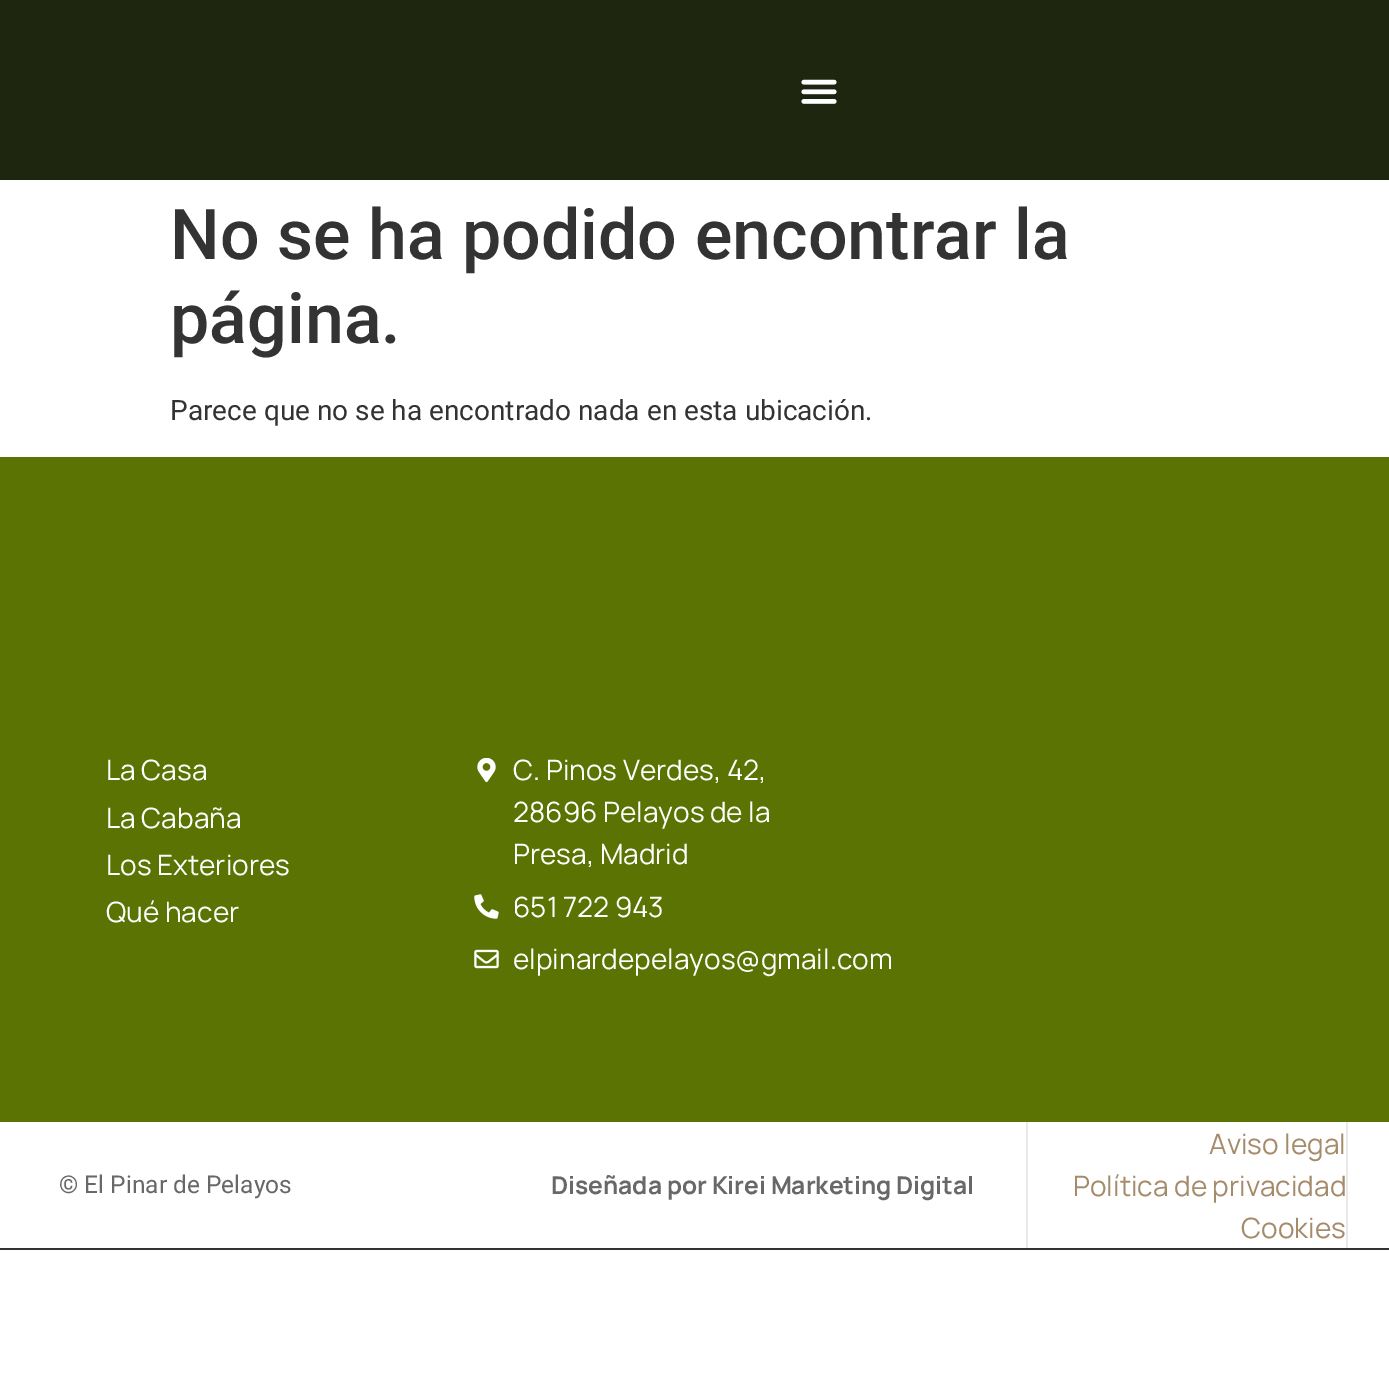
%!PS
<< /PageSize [1389 1389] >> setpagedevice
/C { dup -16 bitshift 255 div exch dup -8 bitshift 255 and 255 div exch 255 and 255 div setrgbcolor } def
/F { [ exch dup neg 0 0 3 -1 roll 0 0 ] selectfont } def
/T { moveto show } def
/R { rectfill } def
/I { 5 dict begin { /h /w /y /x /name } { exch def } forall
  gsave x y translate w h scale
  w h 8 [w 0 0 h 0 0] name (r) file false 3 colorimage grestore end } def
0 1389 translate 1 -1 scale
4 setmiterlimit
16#FFFFFF C
0 0 1389 1389 R
16#1F2610 C
0 0 1389 180 R
(1.rgb) 801 79 36 25 I
/Roboto-Medium 70 F
16#333333 C
(No se ha podido encontrar la) 170 259 T
(página.) 170 343 T
/Roboto-Regular 28 F
(Parece que no se ha encontrado nada en esta ubicación.) 170 420 T
16#5A7302 C
0 457 1389 665 R
/Manrope-Regular 28 F
16#FFFFFF C
(La Casa) 106 780 T
(La Cabaña) 106 828 T
(Los Exteriores) 106 875 T
(Qué hacer) 106 922 T
(2.rgb) 477 758 19 24 I
(C. Pinos Verdes, 42,) 513 780 T
(28696 Pelayos de la) 513 822 T
(Presa, Madrid) 513 864 T
(3.rgb) 474 894 25 25 I
(651 722 943) 513 917 T
(4.rgb) 474 949 25 20 I
(elpinardepelayos@gmail.com) 513 969 T
16#333333 C
0 1248 1389 2 R
/Roboto-Regular 24.5 F
16#686868 C
(© El Pinar de Pelayos) 59 1193 T
/Manrope-Bold 24.5 F
(Diseñada por Kirei Marketing Digital) 551 1194 T
16#E9E9E9 C
1346 1122 2 126 R
1026 1122 2 126 R
/Manrope-Regular 28 F
16#A68B6A C
(Aviso legal) 1209 1154 T
(Política de privacidad) 1073 1196 T
(Cookies) 1241 1238 T
showpage
